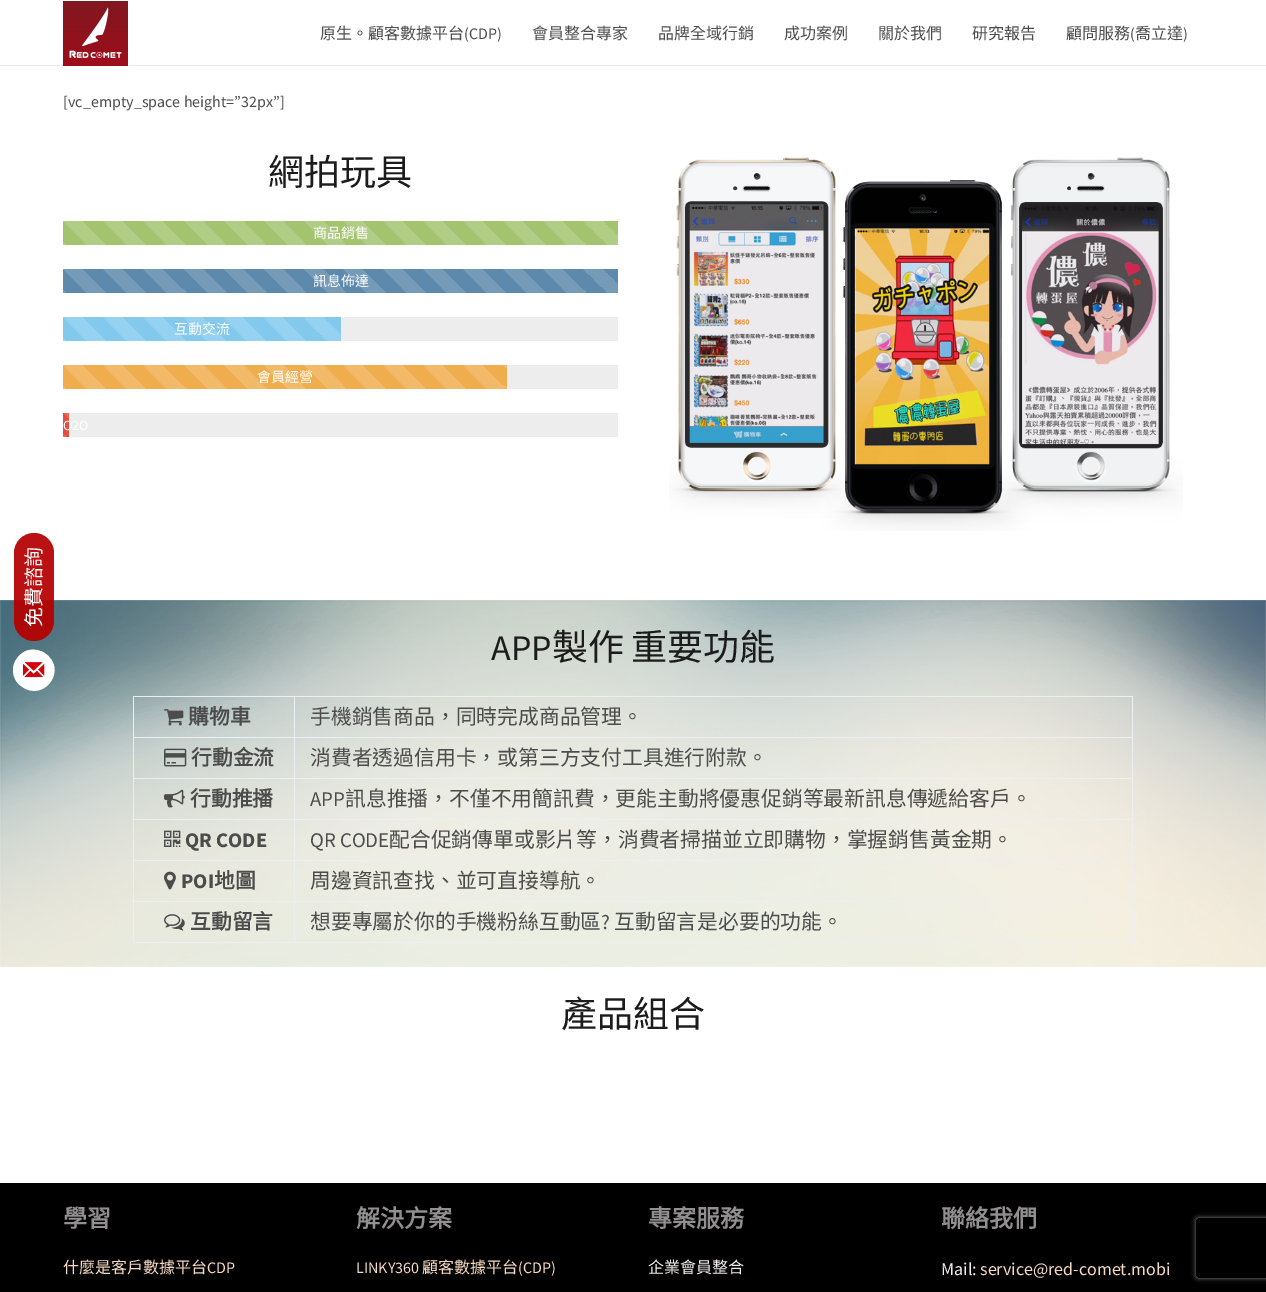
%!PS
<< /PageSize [1266 1292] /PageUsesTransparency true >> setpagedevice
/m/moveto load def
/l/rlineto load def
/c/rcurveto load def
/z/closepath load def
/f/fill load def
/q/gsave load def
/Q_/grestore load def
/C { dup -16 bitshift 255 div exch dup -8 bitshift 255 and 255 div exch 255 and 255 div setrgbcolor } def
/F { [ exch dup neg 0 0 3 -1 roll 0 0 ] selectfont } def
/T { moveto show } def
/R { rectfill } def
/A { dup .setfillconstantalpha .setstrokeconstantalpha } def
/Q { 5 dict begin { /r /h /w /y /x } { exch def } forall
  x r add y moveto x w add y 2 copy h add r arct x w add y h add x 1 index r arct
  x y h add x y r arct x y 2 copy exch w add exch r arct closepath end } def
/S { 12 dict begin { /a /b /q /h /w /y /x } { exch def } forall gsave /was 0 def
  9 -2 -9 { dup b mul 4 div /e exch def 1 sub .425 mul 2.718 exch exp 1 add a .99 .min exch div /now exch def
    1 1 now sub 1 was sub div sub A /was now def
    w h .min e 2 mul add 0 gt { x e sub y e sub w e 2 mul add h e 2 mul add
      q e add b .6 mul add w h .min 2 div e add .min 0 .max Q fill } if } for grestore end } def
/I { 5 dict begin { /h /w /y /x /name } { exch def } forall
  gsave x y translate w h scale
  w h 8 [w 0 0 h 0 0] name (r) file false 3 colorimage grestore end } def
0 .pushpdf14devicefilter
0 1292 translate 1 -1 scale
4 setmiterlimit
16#FFFFFF C
0 0 1266 1292 R
q
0 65 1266 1 rectclip
16#000000 C
0 1 1266 65 0 .5 .1 S
Q_
(1.rgb) 63 1 65 65 I
/NotoSansCJKTC-Regular 16 F
16#4C4C4C C
(原生。顧客數據平台) 320 39 T
/SourceSansPro-Regular 16 F
(\(CDP\)) 464 39 T
/NotoSansCJKTC-Regular 16 F
(會員整合專家) 532 39 T
(品牌全域行銷) 658 39 T
(成功案例) 784 39 T
(關於我們) 878 39 T
(研究報告) 972 39 T
(顧問服務) 1066 39 T
/SourceSansPro-Regular 16 F
(\() 1130 39 T
/NotoSansCJKTC-Regular 16 F
(喬立達) 1135 39 T
/SourceSansPro-Regular 16 F
(\)) 1183 39 T
(4.rgb) 0 600 1266 367 I
0.93 A
16#B50000 C
14 621 m 0 -68 l 0 -11 9 -20 20 -20 c 11 0 20 9 20 20 c 0 68 l 0 11 -9 20 -20 20 c -11 0 -20 -9 -20 -20 c z f
/NotoSansCJKTC-Regular 20 F
1 A
16#FFFFFF C
q 41 627 translate -90 rotate 0 0 m (免費諮詢) show Q_
13 670 m 0 -9 7 -18 16 -20 c 6 -1 12 0 17 4 c 22 17 -3 49 -25 32 c -5 -3 -8 -10 -8 -16 c z f
(2.rgb) 23 662 22 16 I
/SourceSansPro-Regular 16 F
16#4C4C4C C
([vc_empty_space height=”32px”]) 63 107 T
/NotoSansCJKTC-Regular 36 F
16#1C1C1C C
(網拍玩具) 268 185 T
q 63 221 m 40 0 l 0 24 l -40 0 l z clip newpath
<< /ShadingType 2 /ColorSpace /DeviceRGB /Coords [63 261 103 221] /Extend [true true] /Function << /FunctionType 3 /Domain [0 1] /Functions [<< /FunctionType 2 /Domain [0 1] /C0 [.694 .8 .522] /C1 [.694 .8 .522] /N 1 >> << /FunctionType 2 /Domain [0 1] /C0 [.639 .765 .435] /C1 [.639 .765 .435] /N 1 >> << /FunctionType 2 /Domain [0 1] /C0 [.694 .8 .522] /C1 [.694 .8 .522] /N 1 >> << /FunctionType 2 /Domain [0 1] /C0 [.639 .765 .435] /C1 [.639 .765 .435] /N 1 >>] /Bounds [.25 .5 .75] /Encode [0 1 0 1 0 1 0 1] >> >> shfill Q_
q 103 221 m 40 0 l 0 24 l -40 0 l z clip newpath
<< /ShadingType 2 /ColorSpace /DeviceRGB /Coords [103 261 143 221] /Extend [true true] /Function << /FunctionType 3 /Domain [0 1] /Functions [<< /FunctionType 2 /Domain [0 1] /C0 [.694 .8 .522] /C1 [.694 .8 .522] /N 1 >> << /FunctionType 2 /Domain [0 1] /C0 [.639 .765 .435] /C1 [.639 .765 .435] /N 1 >> << /FunctionType 2 /Domain [0 1] /C0 [.694 .8 .522] /C1 [.694 .8 .522] /N 1 >> << /FunctionType 2 /Domain [0 1] /C0 [.639 .765 .435] /C1 [.639 .765 .435] /N 1 >>] /Bounds [.25 .5 .75] /Encode [0 1 0 1 0 1 0 1] >> >> shfill Q_
q 143 221 m 40 0 l 0 24 l -40 0 l z clip newpath
<< /ShadingType 2 /ColorSpace /DeviceRGB /Coords [143 261 183 221] /Extend [true true] /Function << /FunctionType 3 /Domain [0 1] /Functions [<< /FunctionType 2 /Domain [0 1] /C0 [.694 .8 .522] /C1 [.694 .8 .522] /N 1 >> << /FunctionType 2 /Domain [0 1] /C0 [.639 .765 .435] /C1 [.639 .765 .435] /N 1 >> << /FunctionType 2 /Domain [0 1] /C0 [.694 .8 .522] /C1 [.694 .8 .522] /N 1 >> << /FunctionType 2 /Domain [0 1] /C0 [.639 .765 .435] /C1 [.639 .765 .435] /N 1 >>] /Bounds [.25 .5 .75] /Encode [0 1 0 1 0 1 0 1] >> >> shfill Q_
q 183 221 m 40 0 l 0 24 l -40 0 l z clip newpath
<< /ShadingType 2 /ColorSpace /DeviceRGB /Coords [183 261 223 221] /Extend [true true] /Function << /FunctionType 3 /Domain [0 1] /Functions [<< /FunctionType 2 /Domain [0 1] /C0 [.694 .8 .522] /C1 [.694 .8 .522] /N 1 >> << /FunctionType 2 /Domain [0 1] /C0 [.639 .765 .435] /C1 [.639 .765 .435] /N 1 >> << /FunctionType 2 /Domain [0 1] /C0 [.694 .8 .522] /C1 [.694 .8 .522] /N 1 >> << /FunctionType 2 /Domain [0 1] /C0 [.639 .765 .435] /C1 [.639 .765 .435] /N 1 >>] /Bounds [.25 .5 .75] /Encode [0 1 0 1 0 1 0 1] >> >> shfill Q_
q 223 221 m 40 0 l 0 24 l -40 0 l z clip newpath
<< /ShadingType 2 /ColorSpace /DeviceRGB /Coords [223 261 263 221] /Extend [true true] /Function << /FunctionType 3 /Domain [0 1] /Functions [<< /FunctionType 2 /Domain [0 1] /C0 [.694 .8 .522] /C1 [.694 .8 .522] /N 1 >> << /FunctionType 2 /Domain [0 1] /C0 [.639 .765 .435] /C1 [.639 .765 .435] /N 1 >> << /FunctionType 2 /Domain [0 1] /C0 [.694 .8 .522] /C1 [.694 .8 .522] /N 1 >> << /FunctionType 2 /Domain [0 1] /C0 [.639 .765 .435] /C1 [.639 .765 .435] /N 1 >>] /Bounds [.25 .5 .75] /Encode [0 1 0 1 0 1 0 1] >> >> shfill Q_
q 263 221 m 40 0 l 0 24 l -40 0 l z clip newpath
<< /ShadingType 2 /ColorSpace /DeviceRGB /Coords [263 261 303 221] /Extend [true true] /Function << /FunctionType 3 /Domain [0 1] /Functions [<< /FunctionType 2 /Domain [0 1] /C0 [.694 .8 .522] /C1 [.694 .8 .522] /N 1 >> << /FunctionType 2 /Domain [0 1] /C0 [.639 .765 .435] /C1 [.639 .765 .435] /N 1 >> << /FunctionType 2 /Domain [0 1] /C0 [.694 .8 .522] /C1 [.694 .8 .522] /N 1 >> << /FunctionType 2 /Domain [0 1] /C0 [.639 .765 .435] /C1 [.639 .765 .435] /N 1 >>] /Bounds [.25 .5 .75] /Encode [0 1 0 1 0 1 0 1] >> >> shfill Q_
q 303 221 m 40 0 l 0 24 l -40 0 l z clip newpath
<< /ShadingType 2 /ColorSpace /DeviceRGB /Coords [303 261 343 221] /Extend [true true] /Function << /FunctionType 3 /Domain [0 1] /Functions [<< /FunctionType 2 /Domain [0 1] /C0 [.694 .8 .522] /C1 [.694 .8 .522] /N 1 >> << /FunctionType 2 /Domain [0 1] /C0 [.639 .765 .435] /C1 [.639 .765 .435] /N 1 >> << /FunctionType 2 /Domain [0 1] /C0 [.694 .8 .522] /C1 [.694 .8 .522] /N 1 >> << /FunctionType 2 /Domain [0 1] /C0 [.639 .765 .435] /C1 [.639 .765 .435] /N 1 >>] /Bounds [.25 .5 .75] /Encode [0 1 0 1 0 1 0 1] >> >> shfill Q_
q 343 221 m 40 0 l 0 24 l -40 0 l z clip newpath
<< /ShadingType 2 /ColorSpace /DeviceRGB /Coords [343 261 383 221] /Extend [true true] /Function << /FunctionType 3 /Domain [0 1] /Functions [<< /FunctionType 2 /Domain [0 1] /C0 [.694 .8 .522] /C1 [.694 .8 .522] /N 1 >> << /FunctionType 2 /Domain [0 1] /C0 [.639 .765 .435] /C1 [.639 .765 .435] /N 1 >> << /FunctionType 2 /Domain [0 1] /C0 [.694 .8 .522] /C1 [.694 .8 .522] /N 1 >> << /FunctionType 2 /Domain [0 1] /C0 [.639 .765 .435] /C1 [.639 .765 .435] /N 1 >>] /Bounds [.25 .5 .75] /Encode [0 1 0 1 0 1 0 1] >> >> shfill Q_
q 383 221 m 40 0 l 0 24 l -40 0 l z clip newpath
<< /ShadingType 2 /ColorSpace /DeviceRGB /Coords [383 261 423 221] /Extend [true true] /Function << /FunctionType 3 /Domain [0 1] /Functions [<< /FunctionType 2 /Domain [0 1] /C0 [.694 .8 .522] /C1 [.694 .8 .522] /N 1 >> << /FunctionType 2 /Domain [0 1] /C0 [.639 .765 .435] /C1 [.639 .765 .435] /N 1 >> << /FunctionType 2 /Domain [0 1] /C0 [.694 .8 .522] /C1 [.694 .8 .522] /N 1 >> << /FunctionType 2 /Domain [0 1] /C0 [.639 .765 .435] /C1 [.639 .765 .435] /N 1 >>] /Bounds [.25 .5 .75] /Encode [0 1 0 1 0 1 0 1] >> >> shfill Q_
q 423 221 m 40 0 l 0 24 l -40 0 l z clip newpath
<< /ShadingType 2 /ColorSpace /DeviceRGB /Coords [423 261 463 221] /Extend [true true] /Function << /FunctionType 3 /Domain [0 1] /Functions [<< /FunctionType 2 /Domain [0 1] /C0 [.694 .8 .522] /C1 [.694 .8 .522] /N 1 >> << /FunctionType 2 /Domain [0 1] /C0 [.639 .765 .435] /C1 [.639 .765 .435] /N 1 >> << /FunctionType 2 /Domain [0 1] /C0 [.694 .8 .522] /C1 [.694 .8 .522] /N 1 >> << /FunctionType 2 /Domain [0 1] /C0 [.639 .765 .435] /C1 [.639 .765 .435] /N 1 >>] /Bounds [.25 .5 .75] /Encode [0 1 0 1 0 1 0 1] >> >> shfill Q_
q 463 221 m 40 0 l 0 24 l -40 0 l z clip newpath
<< /ShadingType 2 /ColorSpace /DeviceRGB /Coords [463 261 503 221] /Extend [true true] /Function << /FunctionType 3 /Domain [0 1] /Functions [<< /FunctionType 2 /Domain [0 1] /C0 [.694 .8 .522] /C1 [.694 .8 .522] /N 1 >> << /FunctionType 2 /Domain [0 1] /C0 [.639 .765 .435] /C1 [.639 .765 .435] /N 1 >> << /FunctionType 2 /Domain [0 1] /C0 [.694 .8 .522] /C1 [.694 .8 .522] /N 1 >> << /FunctionType 2 /Domain [0 1] /C0 [.639 .765 .435] /C1 [.639 .765 .435] /N 1 >>] /Bounds [.25 .5 .75] /Encode [0 1 0 1 0 1 0 1] >> >> shfill Q_
q 503 221 m 40 0 l 0 24 l -40 0 l z clip newpath
<< /ShadingType 2 /ColorSpace /DeviceRGB /Coords [503 261 543 221] /Extend [true true] /Function << /FunctionType 3 /Domain [0 1] /Functions [<< /FunctionType 2 /Domain [0 1] /C0 [.694 .8 .522] /C1 [.694 .8 .522] /N 1 >> << /FunctionType 2 /Domain [0 1] /C0 [.639 .765 .435] /C1 [.639 .765 .435] /N 1 >> << /FunctionType 2 /Domain [0 1] /C0 [.694 .8 .522] /C1 [.694 .8 .522] /N 1 >> << /FunctionType 2 /Domain [0 1] /C0 [.639 .765 .435] /C1 [.639 .765 .435] /N 1 >>] /Bounds [.25 .5 .75] /Encode [0 1 0 1 0 1 0 1] >> >> shfill Q_
q 543 221 m 40 0 l 0 24 l -40 0 l z clip newpath
<< /ShadingType 2 /ColorSpace /DeviceRGB /Coords [543 261 583 221] /Extend [true true] /Function << /FunctionType 3 /Domain [0 1] /Functions [<< /FunctionType 2 /Domain [0 1] /C0 [.694 .8 .522] /C1 [.694 .8 .522] /N 1 >> << /FunctionType 2 /Domain [0 1] /C0 [.639 .765 .435] /C1 [.639 .765 .435] /N 1 >> << /FunctionType 2 /Domain [0 1] /C0 [.694 .8 .522] /C1 [.694 .8 .522] /N 1 >> << /FunctionType 2 /Domain [0 1] /C0 [.639 .765 .435] /C1 [.639 .765 .435] /N 1 >>] /Bounds [.25 .5 .75] /Encode [0 1 0 1 0 1 0 1] >> >> shfill Q_
q 583 221 m 35 0 l 0 24 l -35 0 l z clip newpath
<< /ShadingType 2 /ColorSpace /DeviceRGB /Coords [583 261 623 221] /Extend [true true] /Function << /FunctionType 3 /Domain [0 1] /Functions [<< /FunctionType 2 /Domain [0 1] /C0 [.694 .8 .522] /C1 [.694 .8 .522] /N 1 >> << /FunctionType 2 /Domain [0 1] /C0 [.639 .765 .435] /C1 [.639 .765 .435] /N 1 >> << /FunctionType 2 /Domain [0 1] /C0 [.694 .8 .522] /C1 [.694 .8 .522] /N 1 >> << /FunctionType 2 /Domain [0 1] /C0 [.639 .765 .435] /C1 [.639 .765 .435] /N 1 >>] /Bounds [.25 .5 .75] /Encode [0 1 0 1 0 1 0 1] >> >> shfill Q_
/NotoSansCJKTC-Regular 14 F
16#FFFFFF C
(商品銷售) 313 238 T
q 63 269 m 40 0 l 0 24 l -40 0 l z clip newpath
<< /ShadingType 2 /ColorSpace /DeviceRGB /Coords [63 309 103 269] /Extend [true true] /Function << /FunctionType 3 /Domain [0 1] /Functions [<< /FunctionType 2 /Domain [0 1] /C0 [.459 .608 .722] /C1 [.459 .608 .722] /N 1 >> << /FunctionType 2 /Domain [0 1] /C0 [.365 .537 .675] /C1 [.365 .537 .675] /N 1 >> << /FunctionType 2 /Domain [0 1] /C0 [.459 .608 .722] /C1 [.459 .608 .722] /N 1 >> << /FunctionType 2 /Domain [0 1] /C0 [.365 .537 .675] /C1 [.365 .537 .675] /N 1 >>] /Bounds [.25 .5 .75] /Encode [0 1 0 1 0 1 0 1] >> >> shfill Q_
q 103 269 m 40 0 l 0 24 l -40 0 l z clip newpath
<< /ShadingType 2 /ColorSpace /DeviceRGB /Coords [103 309 143 269] /Extend [true true] /Function << /FunctionType 3 /Domain [0 1] /Functions [<< /FunctionType 2 /Domain [0 1] /C0 [.459 .608 .722] /C1 [.459 .608 .722] /N 1 >> << /FunctionType 2 /Domain [0 1] /C0 [.365 .537 .675] /C1 [.365 .537 .675] /N 1 >> << /FunctionType 2 /Domain [0 1] /C0 [.459 .608 .722] /C1 [.459 .608 .722] /N 1 >> << /FunctionType 2 /Domain [0 1] /C0 [.365 .537 .675] /C1 [.365 .537 .675] /N 1 >>] /Bounds [.25 .5 .75] /Encode [0 1 0 1 0 1 0 1] >> >> shfill Q_
q 143 269 m 40 0 l 0 24 l -40 0 l z clip newpath
<< /ShadingType 2 /ColorSpace /DeviceRGB /Coords [143 309 183 269] /Extend [true true] /Function << /FunctionType 3 /Domain [0 1] /Functions [<< /FunctionType 2 /Domain [0 1] /C0 [.459 .608 .722] /C1 [.459 .608 .722] /N 1 >> << /FunctionType 2 /Domain [0 1] /C0 [.365 .537 .675] /C1 [.365 .537 .675] /N 1 >> << /FunctionType 2 /Domain [0 1] /C0 [.459 .608 .722] /C1 [.459 .608 .722] /N 1 >> << /FunctionType 2 /Domain [0 1] /C0 [.365 .537 .675] /C1 [.365 .537 .675] /N 1 >>] /Bounds [.25 .5 .75] /Encode [0 1 0 1 0 1 0 1] >> >> shfill Q_
q 183 269 m 40 0 l 0 24 l -40 0 l z clip newpath
<< /ShadingType 2 /ColorSpace /DeviceRGB /Coords [183 309 223 269] /Extend [true true] /Function << /FunctionType 3 /Domain [0 1] /Functions [<< /FunctionType 2 /Domain [0 1] /C0 [.459 .608 .722] /C1 [.459 .608 .722] /N 1 >> << /FunctionType 2 /Domain [0 1] /C0 [.365 .537 .675] /C1 [.365 .537 .675] /N 1 >> << /FunctionType 2 /Domain [0 1] /C0 [.459 .608 .722] /C1 [.459 .608 .722] /N 1 >> << /FunctionType 2 /Domain [0 1] /C0 [.365 .537 .675] /C1 [.365 .537 .675] /N 1 >>] /Bounds [.25 .5 .75] /Encode [0 1 0 1 0 1 0 1] >> >> shfill Q_
q 223 269 m 40 0 l 0 24 l -40 0 l z clip newpath
<< /ShadingType 2 /ColorSpace /DeviceRGB /Coords [223 309 263 269] /Extend [true true] /Function << /FunctionType 3 /Domain [0 1] /Functions [<< /FunctionType 2 /Domain [0 1] /C0 [.459 .608 .722] /C1 [.459 .608 .722] /N 1 >> << /FunctionType 2 /Domain [0 1] /C0 [.365 .537 .675] /C1 [.365 .537 .675] /N 1 >> << /FunctionType 2 /Domain [0 1] /C0 [.459 .608 .722] /C1 [.459 .608 .722] /N 1 >> << /FunctionType 2 /Domain [0 1] /C0 [.365 .537 .675] /C1 [.365 .537 .675] /N 1 >>] /Bounds [.25 .5 .75] /Encode [0 1 0 1 0 1 0 1] >> >> shfill Q_
q 263 269 m 40 0 l 0 24 l -40 0 l z clip newpath
<< /ShadingType 2 /ColorSpace /DeviceRGB /Coords [263 309 303 269] /Extend [true true] /Function << /FunctionType 3 /Domain [0 1] /Functions [<< /FunctionType 2 /Domain [0 1] /C0 [.459 .608 .722] /C1 [.459 .608 .722] /N 1 >> << /FunctionType 2 /Domain [0 1] /C0 [.365 .537 .675] /C1 [.365 .537 .675] /N 1 >> << /FunctionType 2 /Domain [0 1] /C0 [.459 .608 .722] /C1 [.459 .608 .722] /N 1 >> << /FunctionType 2 /Domain [0 1] /C0 [.365 .537 .675] /C1 [.365 .537 .675] /N 1 >>] /Bounds [.25 .5 .75] /Encode [0 1 0 1 0 1 0 1] >> >> shfill Q_
q 303 269 m 40 0 l 0 24 l -40 0 l z clip newpath
<< /ShadingType 2 /ColorSpace /DeviceRGB /Coords [303 309 343 269] /Extend [true true] /Function << /FunctionType 3 /Domain [0 1] /Functions [<< /FunctionType 2 /Domain [0 1] /C0 [.459 .608 .722] /C1 [.459 .608 .722] /N 1 >> << /FunctionType 2 /Domain [0 1] /C0 [.365 .537 .675] /C1 [.365 .537 .675] /N 1 >> << /FunctionType 2 /Domain [0 1] /C0 [.459 .608 .722] /C1 [.459 .608 .722] /N 1 >> << /FunctionType 2 /Domain [0 1] /C0 [.365 .537 .675] /C1 [.365 .537 .675] /N 1 >>] /Bounds [.25 .5 .75] /Encode [0 1 0 1 0 1 0 1] >> >> shfill Q_
q 343 269 m 40 0 l 0 24 l -40 0 l z clip newpath
<< /ShadingType 2 /ColorSpace /DeviceRGB /Coords [343 309 383 269] /Extend [true true] /Function << /FunctionType 3 /Domain [0 1] /Functions [<< /FunctionType 2 /Domain [0 1] /C0 [.459 .608 .722] /C1 [.459 .608 .722] /N 1 >> << /FunctionType 2 /Domain [0 1] /C0 [.365 .537 .675] /C1 [.365 .537 .675] /N 1 >> << /FunctionType 2 /Domain [0 1] /C0 [.459 .608 .722] /C1 [.459 .608 .722] /N 1 >> << /FunctionType 2 /Domain [0 1] /C0 [.365 .537 .675] /C1 [.365 .537 .675] /N 1 >>] /Bounds [.25 .5 .75] /Encode [0 1 0 1 0 1 0 1] >> >> shfill Q_
q 383 269 m 40 0 l 0 24 l -40 0 l z clip newpath
<< /ShadingType 2 /ColorSpace /DeviceRGB /Coords [383 309 423 269] /Extend [true true] /Function << /FunctionType 3 /Domain [0 1] /Functions [<< /FunctionType 2 /Domain [0 1] /C0 [.459 .608 .722] /C1 [.459 .608 .722] /N 1 >> << /FunctionType 2 /Domain [0 1] /C0 [.365 .537 .675] /C1 [.365 .537 .675] /N 1 >> << /FunctionType 2 /Domain [0 1] /C0 [.459 .608 .722] /C1 [.459 .608 .722] /N 1 >> << /FunctionType 2 /Domain [0 1] /C0 [.365 .537 .675] /C1 [.365 .537 .675] /N 1 >>] /Bounds [.25 .5 .75] /Encode [0 1 0 1 0 1 0 1] >> >> shfill Q_
q 423 269 m 40 0 l 0 24 l -40 0 l z clip newpath
<< /ShadingType 2 /ColorSpace /DeviceRGB /Coords [423 309 463 269] /Extend [true true] /Function << /FunctionType 3 /Domain [0 1] /Functions [<< /FunctionType 2 /Domain [0 1] /C0 [.459 .608 .722] /C1 [.459 .608 .722] /N 1 >> << /FunctionType 2 /Domain [0 1] /C0 [.365 .537 .675] /C1 [.365 .537 .675] /N 1 >> << /FunctionType 2 /Domain [0 1] /C0 [.459 .608 .722] /C1 [.459 .608 .722] /N 1 >> << /FunctionType 2 /Domain [0 1] /C0 [.365 .537 .675] /C1 [.365 .537 .675] /N 1 >>] /Bounds [.25 .5 .75] /Encode [0 1 0 1 0 1 0 1] >> >> shfill Q_
q 463 269 m 40 0 l 0 24 l -40 0 l z clip newpath
<< /ShadingType 2 /ColorSpace /DeviceRGB /Coords [463 309 503 269] /Extend [true true] /Function << /FunctionType 3 /Domain [0 1] /Functions [<< /FunctionType 2 /Domain [0 1] /C0 [.459 .608 .722] /C1 [.459 .608 .722] /N 1 >> << /FunctionType 2 /Domain [0 1] /C0 [.365 .537 .675] /C1 [.365 .537 .675] /N 1 >> << /FunctionType 2 /Domain [0 1] /C0 [.459 .608 .722] /C1 [.459 .608 .722] /N 1 >> << /FunctionType 2 /Domain [0 1] /C0 [.365 .537 .675] /C1 [.365 .537 .675] /N 1 >>] /Bounds [.25 .5 .75] /Encode [0 1 0 1 0 1 0 1] >> >> shfill Q_
q 503 269 m 40 0 l 0 24 l -40 0 l z clip newpath
<< /ShadingType 2 /ColorSpace /DeviceRGB /Coords [503 309 543 269] /Extend [true true] /Function << /FunctionType 3 /Domain [0 1] /Functions [<< /FunctionType 2 /Domain [0 1] /C0 [.459 .608 .722] /C1 [.459 .608 .722] /N 1 >> << /FunctionType 2 /Domain [0 1] /C0 [.365 .537 .675] /C1 [.365 .537 .675] /N 1 >> << /FunctionType 2 /Domain [0 1] /C0 [.459 .608 .722] /C1 [.459 .608 .722] /N 1 >> << /FunctionType 2 /Domain [0 1] /C0 [.365 .537 .675] /C1 [.365 .537 .675] /N 1 >>] /Bounds [.25 .5 .75] /Encode [0 1 0 1 0 1 0 1] >> >> shfill Q_
q 543 269 m 40 0 l 0 24 l -40 0 l z clip newpath
<< /ShadingType 2 /ColorSpace /DeviceRGB /Coords [543 309 583 269] /Extend [true true] /Function << /FunctionType 3 /Domain [0 1] /Functions [<< /FunctionType 2 /Domain [0 1] /C0 [.459 .608 .722] /C1 [.459 .608 .722] /N 1 >> << /FunctionType 2 /Domain [0 1] /C0 [.365 .537 .675] /C1 [.365 .537 .675] /N 1 >> << /FunctionType 2 /Domain [0 1] /C0 [.459 .608 .722] /C1 [.459 .608 .722] /N 1 >> << /FunctionType 2 /Domain [0 1] /C0 [.365 .537 .675] /C1 [.365 .537 .675] /N 1 >>] /Bounds [.25 .5 .75] /Encode [0 1 0 1 0 1 0 1] >> >> shfill Q_
q 583 269 m 35 0 l 0 24 l -35 0 l z clip newpath
<< /ShadingType 2 /ColorSpace /DeviceRGB /Coords [583 309 623 269] /Extend [true true] /Function << /FunctionType 3 /Domain [0 1] /Functions [<< /FunctionType 2 /Domain [0 1] /C0 [.459 .608 .722] /C1 [.459 .608 .722] /N 1 >> << /FunctionType 2 /Domain [0 1] /C0 [.365 .537 .675] /C1 [.365 .537 .675] /N 1 >> << /FunctionType 2 /Domain [0 1] /C0 [.459 .608 .722] /C1 [.459 .608 .722] /N 1 >> << /FunctionType 2 /Domain [0 1] /C0 [.365 .537 .675] /C1 [.365 .537 .675] /N 1 >>] /Bounds [.25 .5 .75] /Encode [0 1 0 1 0 1 0 1] >> >> shfill Q_
(訊息佈達) 313 286 T
16#EDEDED C
341 317 277 24 R
q 63 317 m 40 0 l 0 24 l -40 0 l z clip newpath
<< /ShadingType 2 /ColorSpace /DeviceRGB /Coords [63 357 103 317] /Extend [true true] /Function << /FunctionType 3 /Domain [0 1] /Functions [<< /FunctionType 2 /Domain [0 1] /C0 [.584 .82 .941] /C1 [.584 .82 .941] /N 1 >> << /FunctionType 2 /Domain [0 1] /C0 [.51 .788 .929] /C1 [.51 .788 .929] /N 1 >> << /FunctionType 2 /Domain [0 1] /C0 [.584 .82 .941] /C1 [.584 .82 .941] /N 1 >> << /FunctionType 2 /Domain [0 1] /C0 [.51 .788 .929] /C1 [.51 .788 .929] /N 1 >>] /Bounds [.25 .5 .75] /Encode [0 1 0 1 0 1 0 1] >> >> shfill Q_
q 103 317 m 40 0 l 0 24 l -40 0 l z clip newpath
<< /ShadingType 2 /ColorSpace /DeviceRGB /Coords [103 357 143 317] /Extend [true true] /Function << /FunctionType 3 /Domain [0 1] /Functions [<< /FunctionType 2 /Domain [0 1] /C0 [.584 .82 .941] /C1 [.584 .82 .941] /N 1 >> << /FunctionType 2 /Domain [0 1] /C0 [.51 .788 .929] /C1 [.51 .788 .929] /N 1 >> << /FunctionType 2 /Domain [0 1] /C0 [.584 .82 .941] /C1 [.584 .82 .941] /N 1 >> << /FunctionType 2 /Domain [0 1] /C0 [.51 .788 .929] /C1 [.51 .788 .929] /N 1 >>] /Bounds [.25 .5 .75] /Encode [0 1 0 1 0 1 0 1] >> >> shfill Q_
q 143 317 m 40 0 l 0 24 l -40 0 l z clip newpath
<< /ShadingType 2 /ColorSpace /DeviceRGB /Coords [143 357 183 317] /Extend [true true] /Function << /FunctionType 3 /Domain [0 1] /Functions [<< /FunctionType 2 /Domain [0 1] /C0 [.584 .82 .941] /C1 [.584 .82 .941] /N 1 >> << /FunctionType 2 /Domain [0 1] /C0 [.51 .788 .929] /C1 [.51 .788 .929] /N 1 >> << /FunctionType 2 /Domain [0 1] /C0 [.584 .82 .941] /C1 [.584 .82 .941] /N 1 >> << /FunctionType 2 /Domain [0 1] /C0 [.51 .788 .929] /C1 [.51 .788 .929] /N 1 >>] /Bounds [.25 .5 .75] /Encode [0 1 0 1 0 1 0 1] >> >> shfill Q_
q 183 317 m 40 0 l 0 24 l -40 0 l z clip newpath
<< /ShadingType 2 /ColorSpace /DeviceRGB /Coords [183 357 223 317] /Extend [true true] /Function << /FunctionType 3 /Domain [0 1] /Functions [<< /FunctionType 2 /Domain [0 1] /C0 [.584 .82 .941] /C1 [.584 .82 .941] /N 1 >> << /FunctionType 2 /Domain [0 1] /C0 [.51 .788 .929] /C1 [.51 .788 .929] /N 1 >> << /FunctionType 2 /Domain [0 1] /C0 [.584 .82 .941] /C1 [.584 .82 .941] /N 1 >> << /FunctionType 2 /Domain [0 1] /C0 [.51 .788 .929] /C1 [.51 .788 .929] /N 1 >>] /Bounds [.25 .5 .75] /Encode [0 1 0 1 0 1 0 1] >> >> shfill Q_
q 223 317 m 40 0 l 0 24 l -40 0 l z clip newpath
<< /ShadingType 2 /ColorSpace /DeviceRGB /Coords [223 357 263 317] /Extend [true true] /Function << /FunctionType 3 /Domain [0 1] /Functions [<< /FunctionType 2 /Domain [0 1] /C0 [.584 .82 .941] /C1 [.584 .82 .941] /N 1 >> << /FunctionType 2 /Domain [0 1] /C0 [.51 .788 .929] /C1 [.51 .788 .929] /N 1 >> << /FunctionType 2 /Domain [0 1] /C0 [.584 .82 .941] /C1 [.584 .82 .941] /N 1 >> << /FunctionType 2 /Domain [0 1] /C0 [.51 .788 .929] /C1 [.51 .788 .929] /N 1 >>] /Bounds [.25 .5 .75] /Encode [0 1 0 1 0 1 0 1] >> >> shfill Q_
q 263 317 m 40 0 l 0 24 l -40 0 l z clip newpath
<< /ShadingType 2 /ColorSpace /DeviceRGB /Coords [263 357 303 317] /Extend [true true] /Function << /FunctionType 3 /Domain [0 1] /Functions [<< /FunctionType 2 /Domain [0 1] /C0 [.584 .82 .941] /C1 [.584 .82 .941] /N 1 >> << /FunctionType 2 /Domain [0 1] /C0 [.51 .788 .929] /C1 [.51 .788 .929] /N 1 >> << /FunctionType 2 /Domain [0 1] /C0 [.584 .82 .941] /C1 [.584 .82 .941] /N 1 >> << /FunctionType 2 /Domain [0 1] /C0 [.51 .788 .929] /C1 [.51 .788 .929] /N 1 >>] /Bounds [.25 .5 .75] /Encode [0 1 0 1 0 1 0 1] >> >> shfill Q_
q 303 317 m 38 0 l 0 24 l -38 0 l z clip newpath
<< /ShadingType 2 /ColorSpace /DeviceRGB /Coords [303 357 343 317] /Extend [true true] /Function << /FunctionType 3 /Domain [0 1] /Functions [<< /FunctionType 2 /Domain [0 1] /C0 [.584 .82 .941] /C1 [.584 .82 .941] /N 1 >> << /FunctionType 2 /Domain [0 1] /C0 [.51 .788 .929] /C1 [.51 .788 .929] /N 1 >> << /FunctionType 2 /Domain [0 1] /C0 [.584 .82 .941] /C1 [.584 .82 .941] /N 1 >> << /FunctionType 2 /Domain [0 1] /C0 [.51 .788 .929] /C1 [.51 .788 .929] /N 1 >>] /Bounds [.25 .5 .75] /Encode [0 1 0 1 0 1 0 1] >> >> shfill Q_
16#FFFFFF C
(互動交流) 174 334 T
16#EDEDED C
507 365 111 24 R
q 63 365 m 40 0 l 0 24 l -40 0 l z clip newpath
<< /ShadingType 2 /ColorSpace /DeviceRGB /Coords [63 405 103 365] /Extend [true true] /Function << /FunctionType 3 /Domain [0 1] /Functions [<< /FunctionType 2 /Domain [0 1] /C0 [.949 .725 .412] /C1 [.949 .725 .412] /N 1 >> << /FunctionType 2 /Domain [0 1] /C0 [.941 .678 .306] /C1 [.941 .678 .306] /N 1 >> << /FunctionType 2 /Domain [0 1] /C0 [.949 .725 .412] /C1 [.949 .725 .412] /N 1 >> << /FunctionType 2 /Domain [0 1] /C0 [.941 .678 .306] /C1 [.941 .678 .306] /N 1 >>] /Bounds [.25 .5 .75] /Encode [0 1 0 1 0 1 0 1] >> >> shfill Q_
q 103 365 m 40 0 l 0 24 l -40 0 l z clip newpath
<< /ShadingType 2 /ColorSpace /DeviceRGB /Coords [103 405 143 365] /Extend [true true] /Function << /FunctionType 3 /Domain [0 1] /Functions [<< /FunctionType 2 /Domain [0 1] /C0 [.949 .725 .412] /C1 [.949 .725 .412] /N 1 >> << /FunctionType 2 /Domain [0 1] /C0 [.941 .678 .306] /C1 [.941 .678 .306] /N 1 >> << /FunctionType 2 /Domain [0 1] /C0 [.949 .725 .412] /C1 [.949 .725 .412] /N 1 >> << /FunctionType 2 /Domain [0 1] /C0 [.941 .678 .306] /C1 [.941 .678 .306] /N 1 >>] /Bounds [.25 .5 .75] /Encode [0 1 0 1 0 1 0 1] >> >> shfill Q_
q 143 365 m 40 0 l 0 24 l -40 0 l z clip newpath
<< /ShadingType 2 /ColorSpace /DeviceRGB /Coords [143 405 183 365] /Extend [true true] /Function << /FunctionType 3 /Domain [0 1] /Functions [<< /FunctionType 2 /Domain [0 1] /C0 [.949 .725 .412] /C1 [.949 .725 .412] /N 1 >> << /FunctionType 2 /Domain [0 1] /C0 [.941 .678 .306] /C1 [.941 .678 .306] /N 1 >> << /FunctionType 2 /Domain [0 1] /C0 [.949 .725 .412] /C1 [.949 .725 .412] /N 1 >> << /FunctionType 2 /Domain [0 1] /C0 [.941 .678 .306] /C1 [.941 .678 .306] /N 1 >>] /Bounds [.25 .5 .75] /Encode [0 1 0 1 0 1 0 1] >> >> shfill Q_
q 183 365 m 40 0 l 0 24 l -40 0 l z clip newpath
<< /ShadingType 2 /ColorSpace /DeviceRGB /Coords [183 405 223 365] /Extend [true true] /Function << /FunctionType 3 /Domain [0 1] /Functions [<< /FunctionType 2 /Domain [0 1] /C0 [.949 .725 .412] /C1 [.949 .725 .412] /N 1 >> << /FunctionType 2 /Domain [0 1] /C0 [.941 .678 .306] /C1 [.941 .678 .306] /N 1 >> << /FunctionType 2 /Domain [0 1] /C0 [.949 .725 .412] /C1 [.949 .725 .412] /N 1 >> << /FunctionType 2 /Domain [0 1] /C0 [.941 .678 .306] /C1 [.941 .678 .306] /N 1 >>] /Bounds [.25 .5 .75] /Encode [0 1 0 1 0 1 0 1] >> >> shfill Q_
q 223 365 m 40 0 l 0 24 l -40 0 l z clip newpath
<< /ShadingType 2 /ColorSpace /DeviceRGB /Coords [223 405 263 365] /Extend [true true] /Function << /FunctionType 3 /Domain [0 1] /Functions [<< /FunctionType 2 /Domain [0 1] /C0 [.949 .725 .412] /C1 [.949 .725 .412] /N 1 >> << /FunctionType 2 /Domain [0 1] /C0 [.941 .678 .306] /C1 [.941 .678 .306] /N 1 >> << /FunctionType 2 /Domain [0 1] /C0 [.949 .725 .412] /C1 [.949 .725 .412] /N 1 >> << /FunctionType 2 /Domain [0 1] /C0 [.941 .678 .306] /C1 [.941 .678 .306] /N 1 >>] /Bounds [.25 .5 .75] /Encode [0 1 0 1 0 1 0 1] >> >> shfill Q_
q 263 365 m 40 0 l 0 24 l -40 0 l z clip newpath
<< /ShadingType 2 /ColorSpace /DeviceRGB /Coords [263 405 303 365] /Extend [true true] /Function << /FunctionType 3 /Domain [0 1] /Functions [<< /FunctionType 2 /Domain [0 1] /C0 [.949 .725 .412] /C1 [.949 .725 .412] /N 1 >> << /FunctionType 2 /Domain [0 1] /C0 [.941 .678 .306] /C1 [.941 .678 .306] /N 1 >> << /FunctionType 2 /Domain [0 1] /C0 [.949 .725 .412] /C1 [.949 .725 .412] /N 1 >> << /FunctionType 2 /Domain [0 1] /C0 [.941 .678 .306] /C1 [.941 .678 .306] /N 1 >>] /Bounds [.25 .5 .75] /Encode [0 1 0 1 0 1 0 1] >> >> shfill Q_
q 303 365 m 40 0 l 0 24 l -40 0 l z clip newpath
<< /ShadingType 2 /ColorSpace /DeviceRGB /Coords [303 405 343 365] /Extend [true true] /Function << /FunctionType 3 /Domain [0 1] /Functions [<< /FunctionType 2 /Domain [0 1] /C0 [.949 .725 .412] /C1 [.949 .725 .412] /N 1 >> << /FunctionType 2 /Domain [0 1] /C0 [.941 .678 .306] /C1 [.941 .678 .306] /N 1 >> << /FunctionType 2 /Domain [0 1] /C0 [.949 .725 .412] /C1 [.949 .725 .412] /N 1 >> << /FunctionType 2 /Domain [0 1] /C0 [.941 .678 .306] /C1 [.941 .678 .306] /N 1 >>] /Bounds [.25 .5 .75] /Encode [0 1 0 1 0 1 0 1] >> >> shfill Q_
q 343 365 m 40 0 l 0 24 l -40 0 l z clip newpath
<< /ShadingType 2 /ColorSpace /DeviceRGB /Coords [343 405 383 365] /Extend [true true] /Function << /FunctionType 3 /Domain [0 1] /Functions [<< /FunctionType 2 /Domain [0 1] /C0 [.949 .725 .412] /C1 [.949 .725 .412] /N 1 >> << /FunctionType 2 /Domain [0 1] /C0 [.941 .678 .306] /C1 [.941 .678 .306] /N 1 >> << /FunctionType 2 /Domain [0 1] /C0 [.949 .725 .412] /C1 [.949 .725 .412] /N 1 >> << /FunctionType 2 /Domain [0 1] /C0 [.941 .678 .306] /C1 [.941 .678 .306] /N 1 >>] /Bounds [.25 .5 .75] /Encode [0 1 0 1 0 1 0 1] >> >> shfill Q_
q 383 365 m 40 0 l 0 24 l -40 0 l z clip newpath
<< /ShadingType 2 /ColorSpace /DeviceRGB /Coords [383 405 423 365] /Extend [true true] /Function << /FunctionType 3 /Domain [0 1] /Functions [<< /FunctionType 2 /Domain [0 1] /C0 [.949 .725 .412] /C1 [.949 .725 .412] /N 1 >> << /FunctionType 2 /Domain [0 1] /C0 [.941 .678 .306] /C1 [.941 .678 .306] /N 1 >> << /FunctionType 2 /Domain [0 1] /C0 [.949 .725 .412] /C1 [.949 .725 .412] /N 1 >> << /FunctionType 2 /Domain [0 1] /C0 [.941 .678 .306] /C1 [.941 .678 .306] /N 1 >>] /Bounds [.25 .5 .75] /Encode [0 1 0 1 0 1 0 1] >> >> shfill Q_
q 423 365 m 40 0 l 0 24 l -40 0 l z clip newpath
<< /ShadingType 2 /ColorSpace /DeviceRGB /Coords [423 405 463 365] /Extend [true true] /Function << /FunctionType 3 /Domain [0 1] /Functions [<< /FunctionType 2 /Domain [0 1] /C0 [.949 .725 .412] /C1 [.949 .725 .412] /N 1 >> << /FunctionType 2 /Domain [0 1] /C0 [.941 .678 .306] /C1 [.941 .678 .306] /N 1 >> << /FunctionType 2 /Domain [0 1] /C0 [.949 .725 .412] /C1 [.949 .725 .412] /N 1 >> << /FunctionType 2 /Domain [0 1] /C0 [.941 .678 .306] /C1 [.941 .678 .306] /N 1 >>] /Bounds [.25 .5 .75] /Encode [0 1 0 1 0 1 0 1] >> >> shfill Q_
q 463 365 m 40 0 l 0 24 l -40 0 l z clip newpath
<< /ShadingType 2 /ColorSpace /DeviceRGB /Coords [463 405 503 365] /Extend [true true] /Function << /FunctionType 3 /Domain [0 1] /Functions [<< /FunctionType 2 /Domain [0 1] /C0 [.949 .725 .412] /C1 [.949 .725 .412] /N 1 >> << /FunctionType 2 /Domain [0 1] /C0 [.941 .678 .306] /C1 [.941 .678 .306] /N 1 >> << /FunctionType 2 /Domain [0 1] /C0 [.949 .725 .412] /C1 [.949 .725 .412] /N 1 >> << /FunctionType 2 /Domain [0 1] /C0 [.941 .678 .306] /C1 [.941 .678 .306] /N 1 >>] /Bounds [.25 .5 .75] /Encode [0 1 0 1 0 1 0 1] >> >> shfill Q_
q 503 365 m 4 0 l 0 24 l -4 0 l z clip newpath
<< /ShadingType 2 /ColorSpace /DeviceRGB /Coords [503 405 543 365] /Extend [true true] /Function << /FunctionType 3 /Domain [0 1] /Functions [<< /FunctionType 2 /Domain [0 1] /C0 [.949 .725 .412] /C1 [.949 .725 .412] /N 1 >> << /FunctionType 2 /Domain [0 1] /C0 [.941 .678 .306] /C1 [.941 .678 .306] /N 1 >> << /FunctionType 2 /Domain [0 1] /C0 [.949 .725 .412] /C1 [.949 .725 .412] /N 1 >> << /FunctionType 2 /Domain [0 1] /C0 [.941 .678 .306] /C1 [.941 .678 .306] /N 1 >>] /Bounds [.25 .5 .75] /Encode [0 1 0 1 0 1 0 1] >> >> shfill Q_
16#FFFFFF C
(會員經營) 257 382 T
16#EDEDED C
69 413 549 24 R
q 63 413 m 6 0 l 0 24 l -6 0 l z clip newpath
<< /ShadingType 2 /ColorSpace /DeviceRGB /Coords [63 453 103 413] /Extend [true true] /Function << /FunctionType 3 /Domain [0 1] /Functions [<< /FunctionType 2 /Domain [0 1] /C0 [.922 .404 .349] /C1 [.922 .404 .349] /N 1 >> << /FunctionType 2 /Domain [0 1] /C0 [.906 .298 .235] /C1 [.906 .298 .235] /N 1 >> << /FunctionType 2 /Domain [0 1] /C0 [.922 .404 .349] /C1 [.922 .404 .349] /N 1 >> << /FunctionType 2 /Domain [0 1] /C0 [.906 .298 .235] /C1 [.906 .298 .235] /N 1 >>] /Bounds [.25 .5 .75] /Encode [0 1 0 1 0 1 0 1] >> >> shfill Q_
/SourceSansPro-Regular 14 F
16#FFFFFF C
(O2O) 63 430 T
(3.rgb) 669 157 514 374 I
/SourceSansPro-Regular 36 F
16#1C1C1C C
(APP) 491 660 T
/NotoSansCJKTC-Regular 36 F
552 660 m -1 0 32 (製作 重要功能) widthshow
16#EBEEF2 C
133 696 1000 1 R
1132 696 1 247 R
133 942 1000 1 R
133 696 1 247 R
294 901 1 42 R
294 901 839 1 R
294 860 1 42 R
294 860 839 1 R
294 819 1 42 R
294 819 839 1 R
294 778 1 42 R
294 778 839 1 R
294 737 1 42 R
294 737 839 1 R
294 696 1 42 R
133 737 162 1 R
(5.rgb) 164 709 20 17 I
/NotoSansCJKTC-Bold 20.8 F
16#4C4C4C C
(購物車) 188 724 T
/NotoSansCJKTC-Regular 20.8 F
(手機銷售商品，同時完成商品管理。) 310 724 T
16#EBEEF2 C
133 778 162 1 R
(6.rgb) 164 748 23 19 I
/NotoSansCJKTC-Bold 20.8 F
16#4C4C4C C
(行動金流) 191 765 T
/NotoSansCJKTC-Regular 20.8 F
(消費者透過信用卡，或第三方支付工具進行附款。) 310 765 T
16#EBEEF2 C
133 819 162 1 R
(7.rgb) 164 789 21 19 I
/NotoSansCJKTC-Bold 20.8 F
16#4C4C4C C
(行動推播) 190 806 T
/SourceSansPro-Regular 20.8 F
(APP) 310 806 T
/NotoSansCJKTC-Regular 20.8 F
(訊息推播，不僅不用簡訊費，更能主動將優惠促銷等最新訊息傳遞給客戶。) 345 806 T
16#EBEEF2 C
133 860 162 1 R
(8.rgb) 164 830 17 17 I
/SourceSansPro-Bold 20.8 F
16#4C4C4C C
(QR CODE) 185 847 T
/SourceSansPro-Regular 20.8 F
(QR CODE) 310 847 T
/NotoSansCJKTC-Regular 20.8 F
(配合促銷傳單或影片等，消費者掃描並立即購物，掌握銷售黃金期。) 389 847 T
16#EBEEF2 C
133 901 162 1 R
(9.rgb) 164 871 12 19 I
/SourceSansPro-Bold 20.8 F
16#4C4C4C C
(POI) 181 888 T
/NotoSansCJKTC-Bold 20.8 F
(地圖) 214 888 T
/NotoSansCJKTC-Regular 20.8 F
(周邊資訊查找、並可直接導航。) 310 888 T
(10.rgb) 164 914 21 17 I
/NotoSansCJKTC-Bold 20.8 F
(互動留言) 190 929 T
/NotoSansCJKTC-Regular 20.8 F
(想要專屬於你的手機粉絲互動區) 310 929 T
/SourceSansPro-Regular 20.8 F
(?) 601 929 T
/NotoSansCJKTC-Regular 20.8 F
(互動留言是必要的功能。) 614 929 T
/NotoSansCJKTC-Regular 36 F
16#1C1C1C C
(產品組合) 561 1027 T
16#000000 C
0 1183 1266 109 R
/NotoSansCJKTC-Bold 24 F
16#918F8F C
(學習) 63 1227 T
/NotoSansCJKTC-Regular 16 F
16#F7D9C2 C
(什麼是客戶數據平台) 63 1273 T
/SourceSansPro-Regular 16 F
(CDP) 207 1273 T
/NotoSansCJKTC-Bold 24 F
16#918F8F C
(解決方案) 356 1227 T
/SourceSansPro-Regular 16 F
16#F7D9C2 C
(LINKY360) 356 1273 T
/NotoSansCJKTC-Regular 16 F
(顧客數據平台) 422 1273 T
/SourceSansPro-Regular 16 F
(\(CDP\)) 518 1273 T
/NotoSansCJKTC-Bold 24 F
16#918F8F C
(專案服務) 648 1227 T
/NotoSansCJKTC-Regular 16 F
16#F8F0F0 C
(企業會員整合) 648 1273 T
/NotoSansCJKTC-Bold 24 F
16#918F8F C
(聯絡我們) 941 1227 T
/SourceSansPro-Regular 18 F
16#F8F0F0 C
(Mail:) 941 1275 T
16#F7D9C2 C
(service@red-comet.mobi) 980 1275 T
q
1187 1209 m 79 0 l 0 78 l -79 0 l z 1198 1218 m 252 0 l 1 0 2 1 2 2 c 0 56 l 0 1 -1 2 -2 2 c -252 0 l -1 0 -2 -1 -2 -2 c 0 -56 l 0 -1 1 -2 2 -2 c z eoclip newpath
16#808080 C
1196 1218 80 60 2 2.5 1 S
Q_
.poppdf14devicefilter showpage
